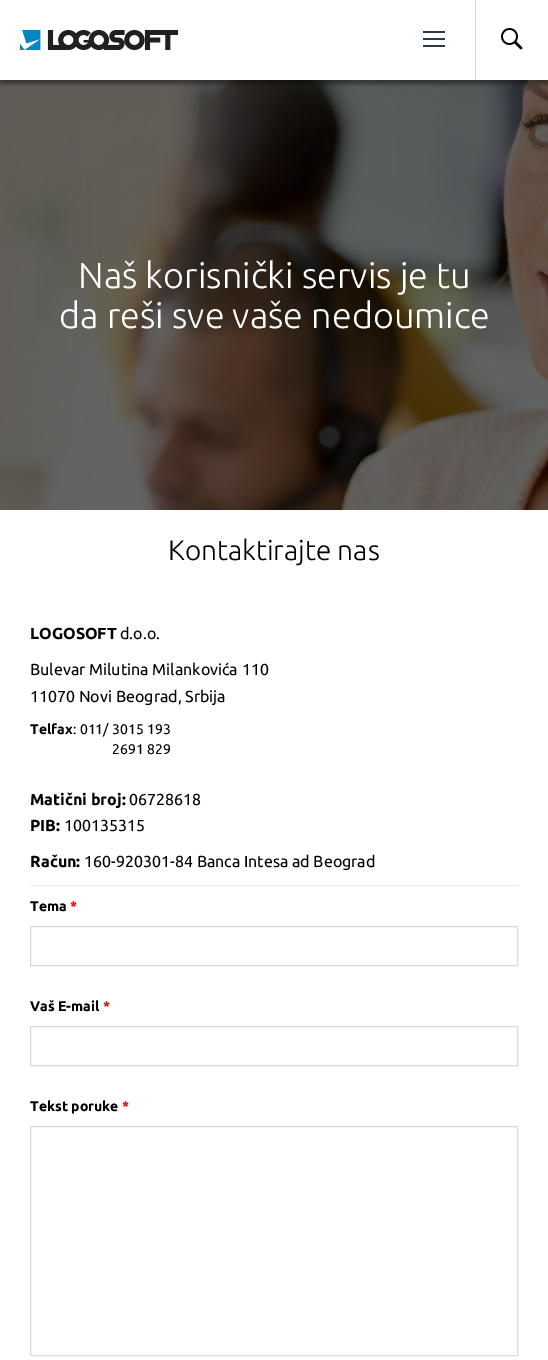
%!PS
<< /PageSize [548 1360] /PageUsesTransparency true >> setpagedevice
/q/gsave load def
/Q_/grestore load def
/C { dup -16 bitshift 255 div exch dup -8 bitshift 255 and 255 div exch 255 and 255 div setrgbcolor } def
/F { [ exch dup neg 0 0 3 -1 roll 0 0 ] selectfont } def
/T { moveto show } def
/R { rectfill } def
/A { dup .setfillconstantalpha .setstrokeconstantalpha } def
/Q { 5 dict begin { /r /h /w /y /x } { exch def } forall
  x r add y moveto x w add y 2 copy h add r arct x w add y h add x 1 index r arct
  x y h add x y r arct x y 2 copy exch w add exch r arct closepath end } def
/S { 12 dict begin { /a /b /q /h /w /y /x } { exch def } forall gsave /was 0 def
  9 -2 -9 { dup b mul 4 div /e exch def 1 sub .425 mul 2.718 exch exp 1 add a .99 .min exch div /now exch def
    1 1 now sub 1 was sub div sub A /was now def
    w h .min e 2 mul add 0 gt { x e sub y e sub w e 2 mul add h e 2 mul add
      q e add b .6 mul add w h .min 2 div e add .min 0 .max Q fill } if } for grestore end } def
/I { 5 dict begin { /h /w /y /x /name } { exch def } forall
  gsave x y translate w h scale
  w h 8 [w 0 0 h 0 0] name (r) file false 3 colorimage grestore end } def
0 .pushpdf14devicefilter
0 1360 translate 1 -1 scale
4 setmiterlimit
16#FFFFFF C
0 0 548 1360 R
(4.rgb) 0 80 548 430 I
q
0 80 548 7 rectclip
16#000000 C
0 4 548 80 0 2 .4 S
Q_
(1.rgb) 20 30 158 20 I
(2.rgb) 423 31 22 16 I
16#DADADA C
475 0 1 80 R
(3.rgb) 501 28 22 22 I
/Ubuntu-Light 36 F
16#FFFFFF C
(Naš korisnički servis je tu) 78 288 T
(da reši sve vaše nedoumice) 59 328 T
/Ubuntu-Light 28 F
16#000000 C
(Kontaktirajte nas) 168 560 T
/Ubuntu-Bold 16 F
(LOGOSOFT) 30 639 T
/Ubuntu-Regular 16 F
(d.o.o.) 120 639 T
(Bulevar Milutina Milankovića 110) 30 675 T
(11070 Novi Beograd, Srbija) 30 702 T
/Ubuntu-Bold 14 F
(Telfax) 30 734 T
/Ubuntu-Regular 14 F
(: 011/) 73 734 T
(3015 193) 112 734 T
(2691 829) 112 754 T
/Ubuntu-Bold 16 F
(Matični broj:) 30 805 T
/Ubuntu-Regular 16 F
(06728618) 129 805 T
/Ubuntu-Bold 16 F
(PIB:) 30 831 T
/Ubuntu-Regular 16 F
(100135315) 64 831 T
/Ubuntu-Bold 16 F
(Račun:) 30 867 T
/Ubuntu-Regular 16 F
(160-920301-84 Banca Intesa ad Beograd) 84 867 T
16#E6E6E6 C
30 885 488 1 R
/Ubuntu-Bold 14 F
16#000000 C
(Tema) 30 911 T
16#E80000 C
(*) 70 911 T
16#DADADA C
30.5 926.5 487 39 rectstroke
16#000000 C
(Vaš E-mail) 30 1011 T
16#E80000 C
(*) 103 1011 T
16#DADADA C
30.5 1026.5 487 39 rectstroke
16#000000 C
(Tekst poruke) 30 1111 T
16#E80000 C
(*) 122 1111 T
16#DADADA C
30.5 1126.5 487 229 rectstroke
.poppdf14devicefilter showpage
